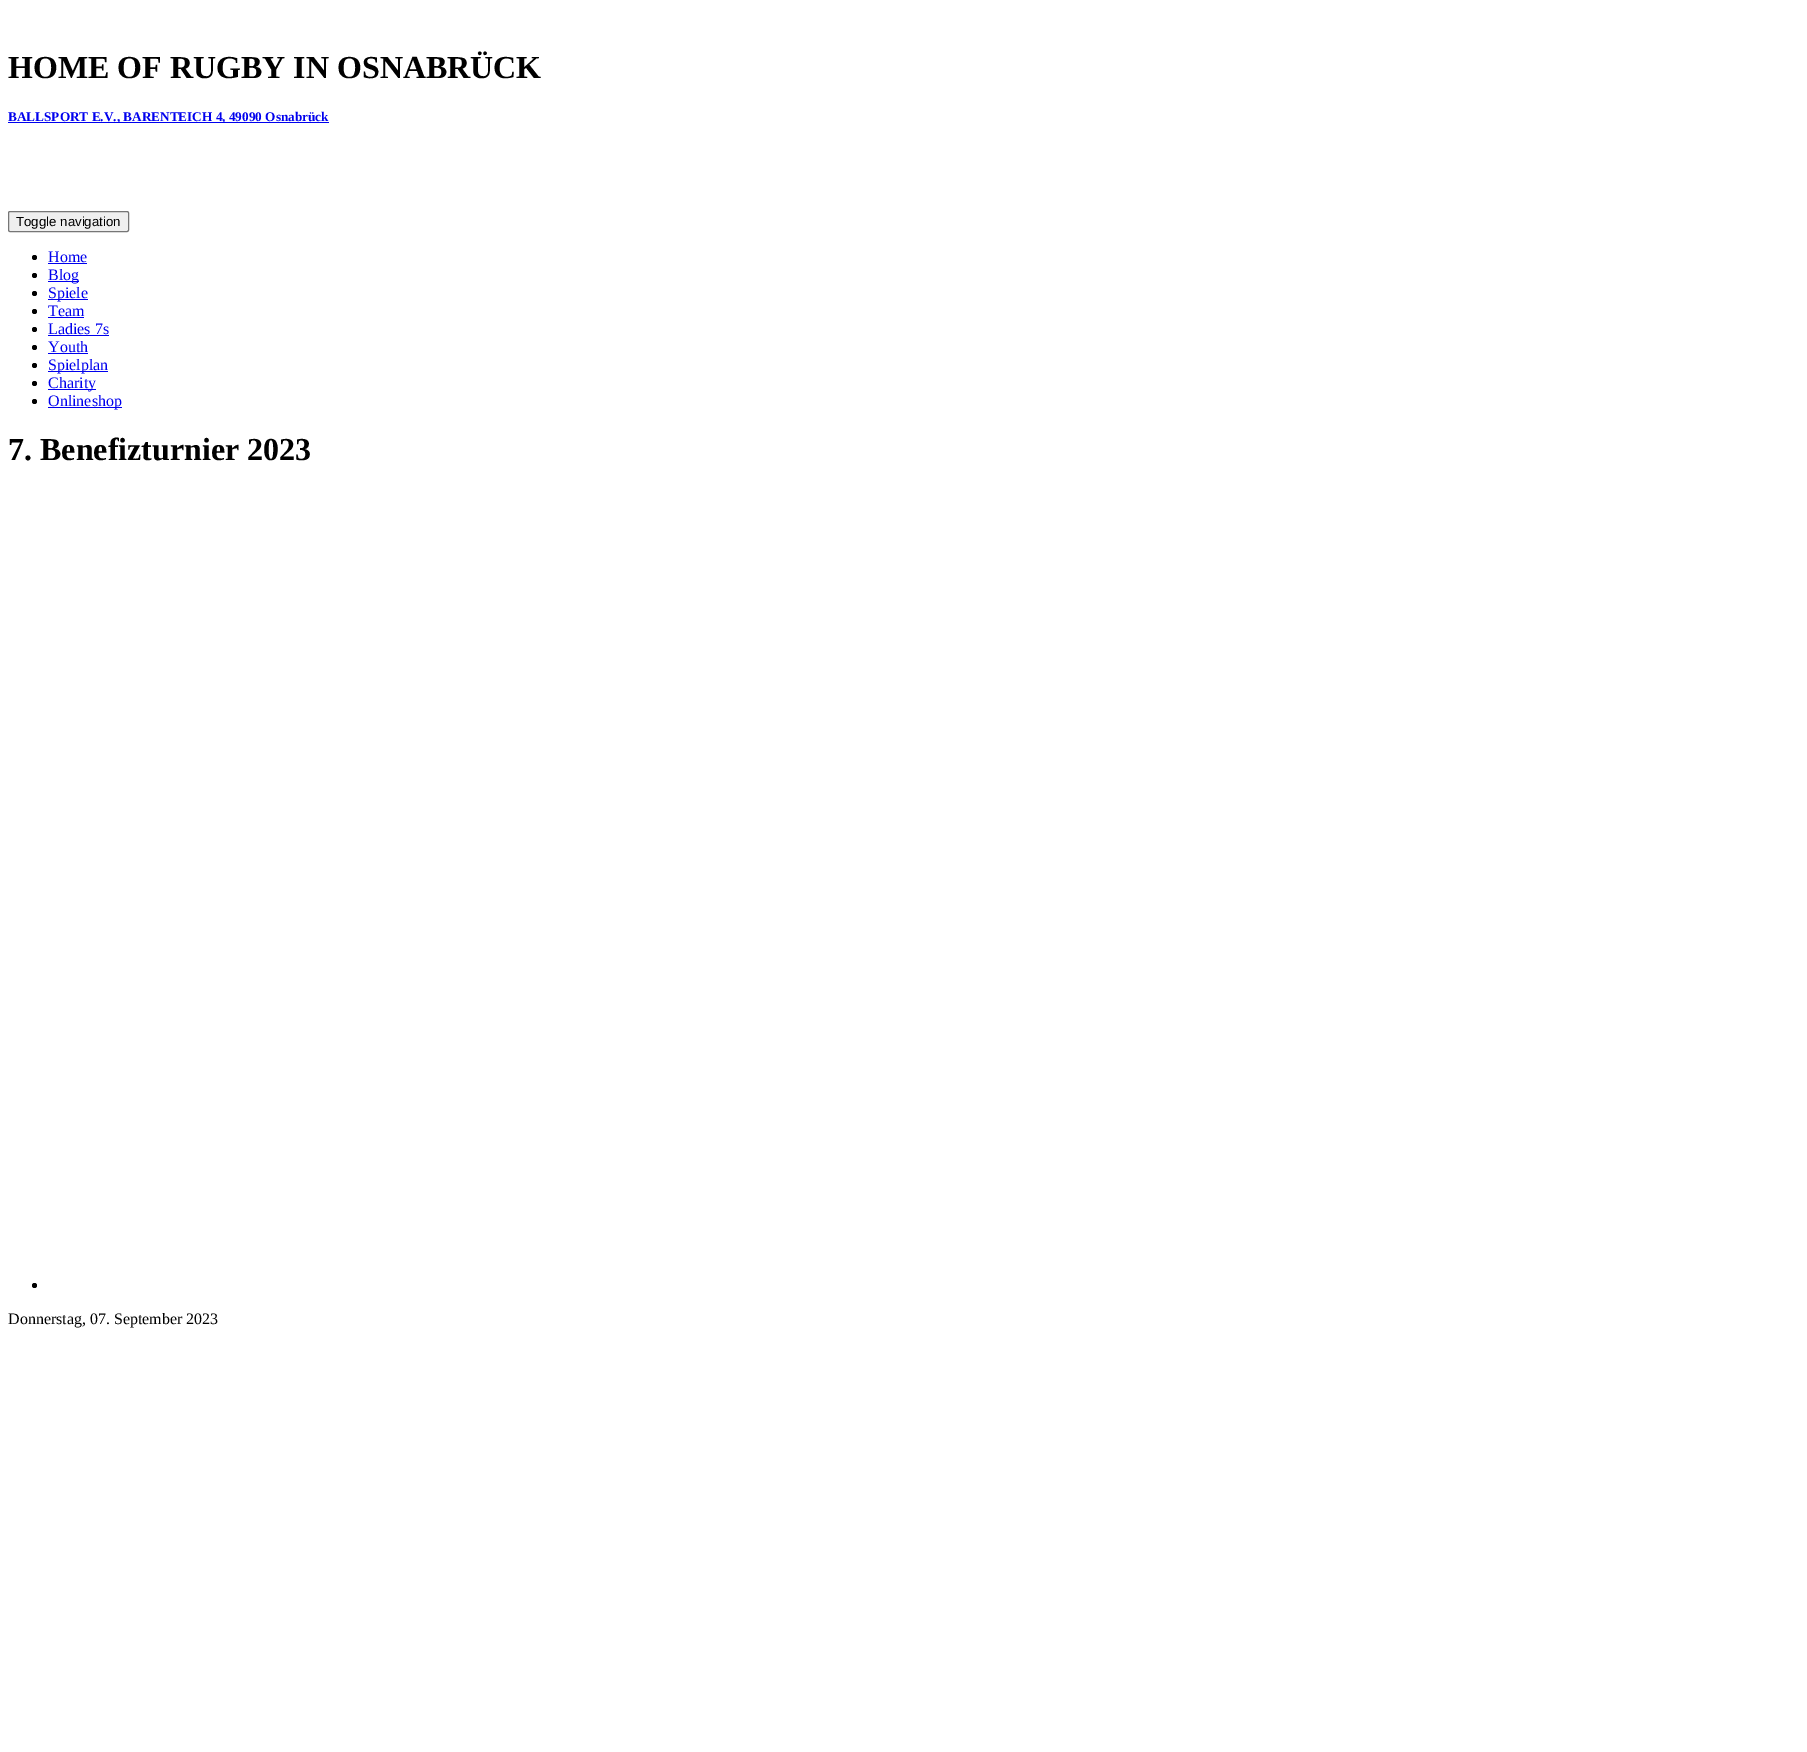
%!PS
<< /PageSize [1807 1752] >> setpagedevice
/f/fill load def
/s/stroke load def
/q/gsave load def
/Q_/grestore load def
/C { dup -16 bitshift 255 div exch dup -8 bitshift 255 and 255 div exch 255 and 255 div setrgbcolor } def
/F { [ exch dup neg 0 0 3 -1 roll 0 0 ] selectfont } def
/T { moveto show } def
/R { rectfill } def
/O { newpath 0 360 arc closepath } def
/Q { 5 dict begin { /r /h /w /y /x } { exch def } forall
  x r add y moveto x w add y 2 copy h add r arct x w add y h add x 1 index r arct
  x y h add x y r arct x y 2 copy exch w add exch r arct closepath end } def
0 1752 translate 1 -1 scale
4 setmiterlimit
16#FFFFFF C
0 0 1807 1752 R
/LiberationSerif-Bold 32 F
16#000000 C
(HOME OF RUGBY IN OSNABRÜCK) 8 78 T
16#0000EE C
8 122 321 1 R
/LiberationSerif-Bold 13.25 F
(BALLSPORT E.V., BARENTEICH 4, 49090 Osnabrück) 8 121 T
16#EFEFEF C
8.5 211.5 120 20 1.5 Q q f Q_
16#767676 C
s
/LiberationSans-Regular 13.25 F
16#000000 C
(Toggle navigation) 16 226 T
34.5 257.5 2.5 O f
/LiberationSerif-Regular 16 F
16#0000EE C
(Home) 48 262 T
48 263 39 1 R
16#000000 C
34.5 275.5 2.5 O f
16#0000EE C
48 281 31 1 R
(Blog) 48 280 T
16#000000 C
34.5 293.5 2.5 O f
16#0000EE C
48 299 40 1 R
(Spiele) 48 298 T
16#000000 C
34.5 311.5 2.5 O f
16#0000EE C
(Team) 48 316 T
48 317 36 1 R
16#000000 C
34.5 329.5 2.5 O f
16#0000EE C
(Ladies 7s) 48 334 T
48 335 61 1 R
16#000000 C
34.5 347.5 2.5 O f
16#0000EE C
(Youth) 48 352 T
48 353 40 1 R
16#000000 C
34.5 365.5 2.5 O f
16#0000EE C
48 371 60 1 R
(Spielplan) 48 370 T
16#000000 C
34.5 383.5 2.5 O f
16#0000EE C
48 389 48 1 R
(Charity) 48 388 T
16#000000 C
34.5 401.5 2.5 O f
16#0000EE C
48 407 74 1 R
(Onlineshop) 48 406 T
/LiberationSerif-Bold 32 F
16#000000 C
(7. Benefizturnier 2023) 8 460 T
34.5 1285.5 2.5 O f
/LiberationSerif-Regular 16 F
(Donnerstag, 07. September 2023) 8 1324 T
showpage
